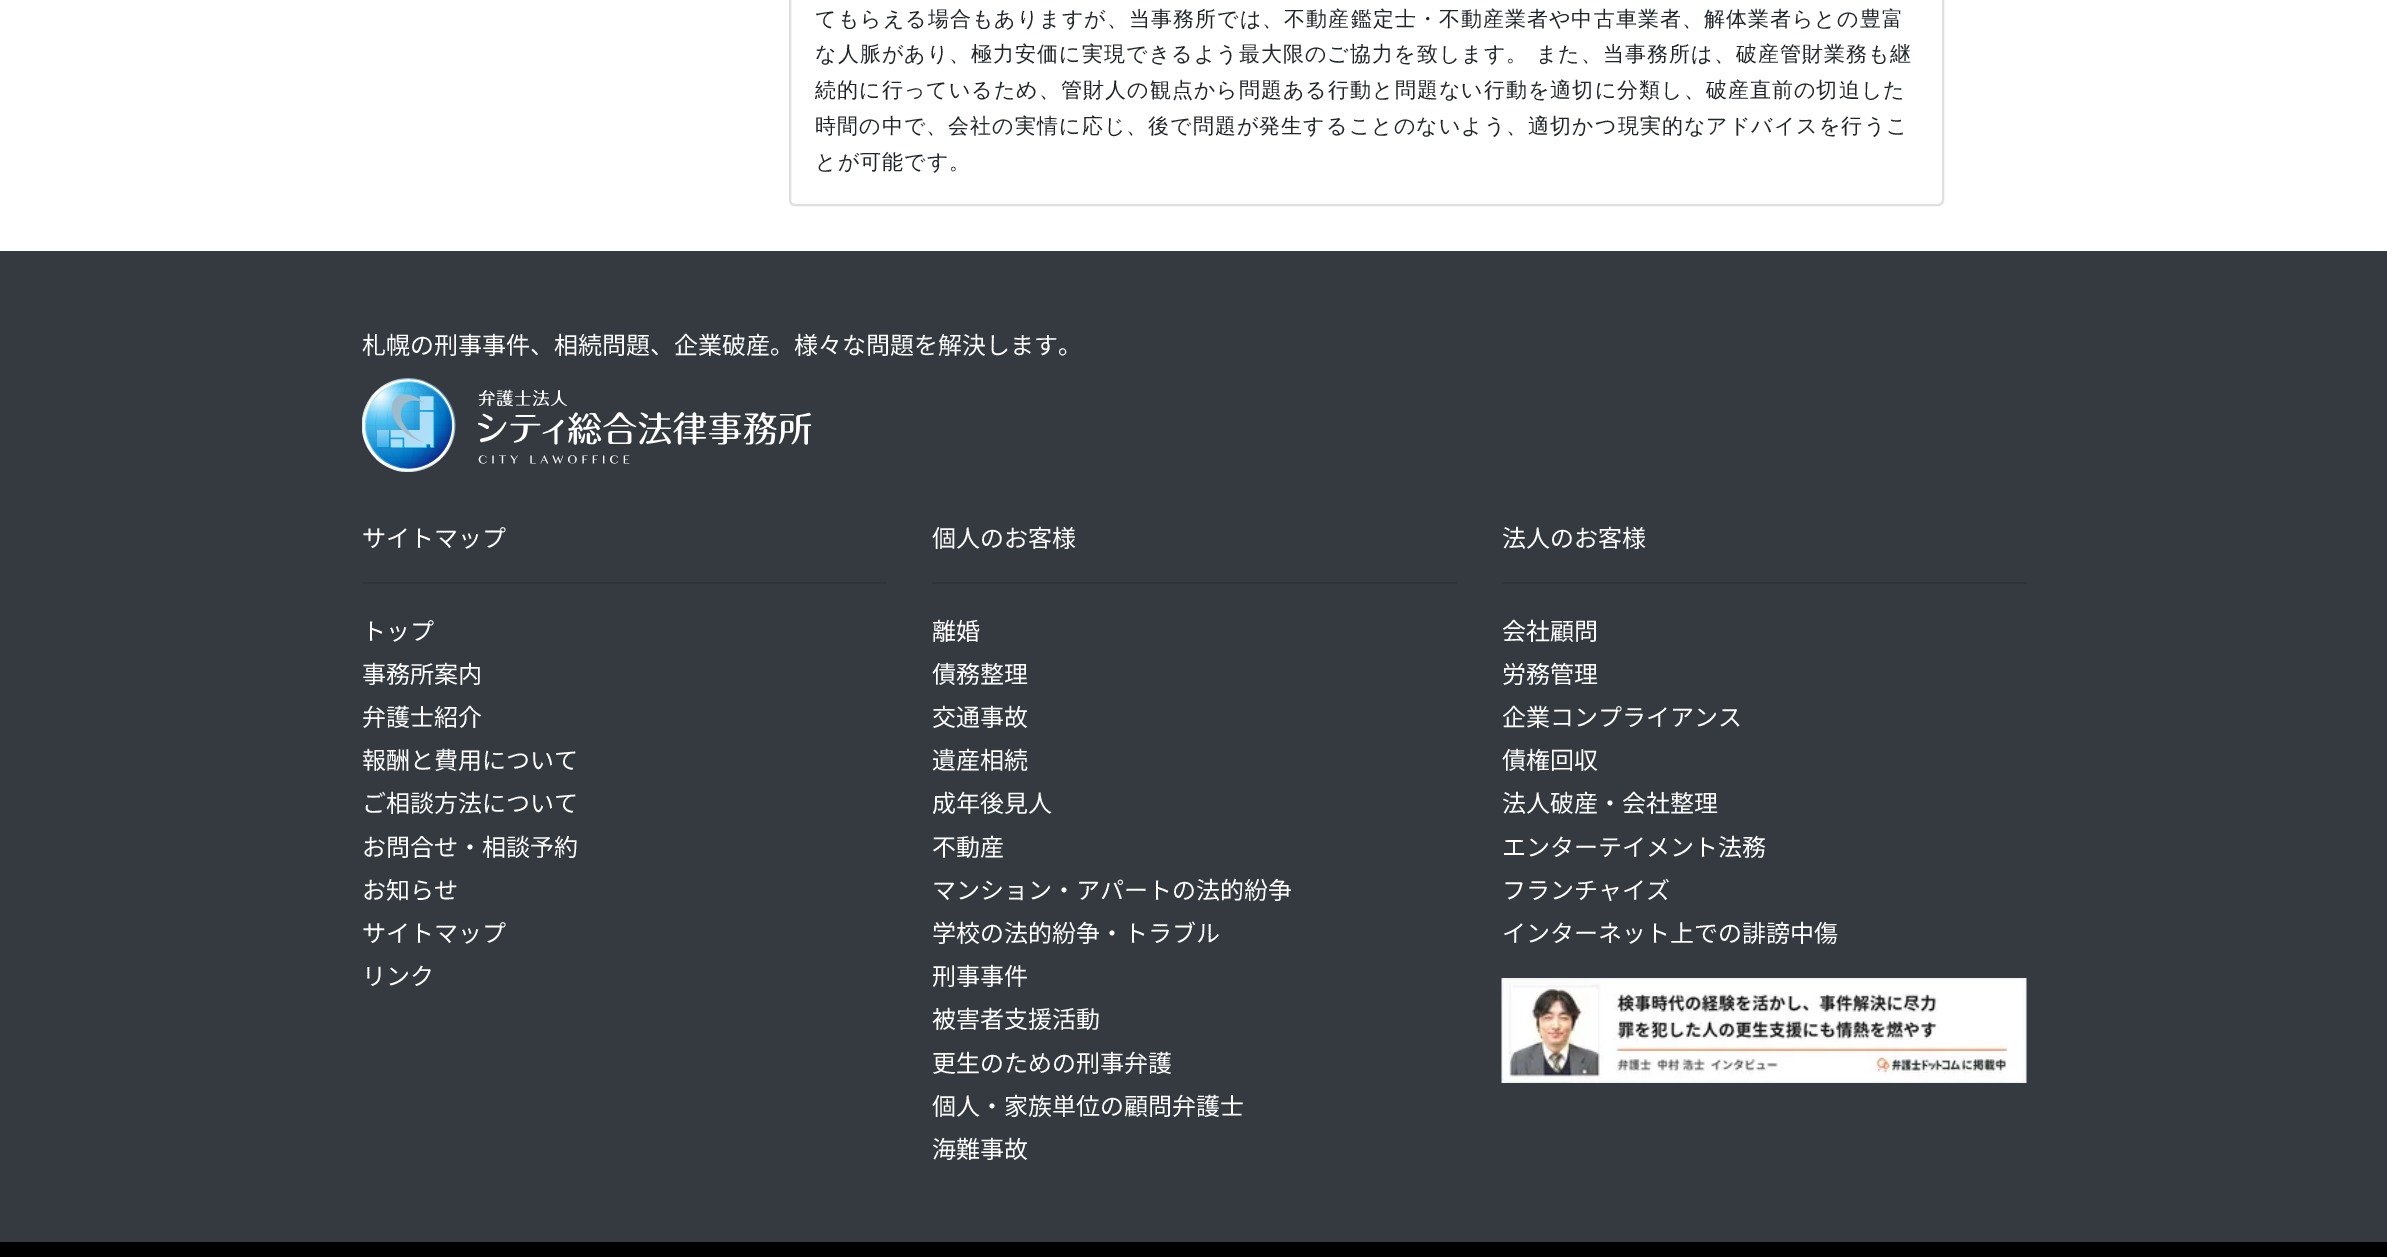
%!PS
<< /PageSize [2387 1257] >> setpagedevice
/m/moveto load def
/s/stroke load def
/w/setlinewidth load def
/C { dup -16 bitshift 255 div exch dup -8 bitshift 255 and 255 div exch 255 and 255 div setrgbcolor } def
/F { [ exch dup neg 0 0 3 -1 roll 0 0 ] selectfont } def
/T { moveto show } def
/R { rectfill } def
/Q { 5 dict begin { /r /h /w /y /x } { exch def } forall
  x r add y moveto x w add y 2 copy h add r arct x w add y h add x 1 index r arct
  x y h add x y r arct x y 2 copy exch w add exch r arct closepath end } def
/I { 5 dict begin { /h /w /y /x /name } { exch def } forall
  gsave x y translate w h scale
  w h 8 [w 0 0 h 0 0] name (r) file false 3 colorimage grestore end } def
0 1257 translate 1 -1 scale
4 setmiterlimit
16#FFFFFF C
0 0 2387 1257 R
16#DFDFDF C
2 w
790 -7 1153 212 5 Q s
/WenQuanYiZenHei-Medium 21 F
16#212529 C
815 26 m 1.05 0 (てもらえる場合もありますが、当事務所では、不動産鑑定士・不動産業者や中古車業者、解体業者らとの豊富) ashow
815 61 m 1.05 0 (な人脈があり、極力安価に実現できるよう最大限のご協力を致します。 また、当事務所は、破産管財業務も継) ashow
815 97 m 1.05 0 (続的に行っているため、管財人の観点から問題ある行動と問題ない行動を適切に分類し、破産直前の切迫した) ashow
815 133 m 1.05 0 (時間の中で、会社の実情に応じ、後で問題が発生することのないよう、適切かつ現実的なアドバイスを行うこ) ashow
815 169 m 1.05 0 (とが可能です。) ashow
16#343A40 C
0 251 2387 991 R
/NotoSansJP-Thin 24 F
16#FFFFFF C
(札幌の刑事事件、相続問題、企業破産。様々な問題を解決します。) 362 354 T
(1.rgb) 362 378 450 94 I
(サイトマップ) 362 547 T
16#2F343A C
362 582 525 2 R
16#FFFFFF C
(トップ) 362 640 T
(事務所案内) 362 683 T
(弁護士紹介) 362 726 T
(報酬と費用について) 362 769 T
(ご相談方法について) 362 812 T
(お問合せ・相談予約) 362 856 T
(お知らせ) 362 899 T
(サイトマップ) 362 942 T
(リンク) 362 985 T
(個人のお客様) 932 547 T
16#2F343A C
932 582 525 2 R
16#FFFFFF C
(離婚) 932 640 T
(債務整理) 932 683 T
(交通事故) 932 726 T
(遺産相続) 932 769 T
(成年後見人) 932 812 T
(不動産) 932 856 T
(マンション・アパートの法的紛争) 932 899 T
(学校の法的紛争・トラブル) 932 942 T
(刑事事件) 932 985 T
(被害者支援活動) 932 1028 T
(更生のための刑事弁護) 932 1072 T
(個人・家族単位の顧問弁護士) 932 1115 T
(海難事故) 932 1158 T
(法人のお客様) 1502 547 T
16#2F343A C
1502 582 525 2 R
16#FFFFFF C
(会社顧問) 1502 640 T
(労務管理) 1502 683 T
(企業コンプライアンス) 1502 726 T
(債権回収) 1502 769 T
(法人破産・会社整理) 1502 812 T
(エンターテイメント法務) 1502 856 T
(フランチャイズ) 1502 899 T
(インターネット上での誹謗中傷) 1502 942 T
(2.rgb) 1501 978 526 105 I
16#000000 C
0 1242 2387 15 R
showpage
